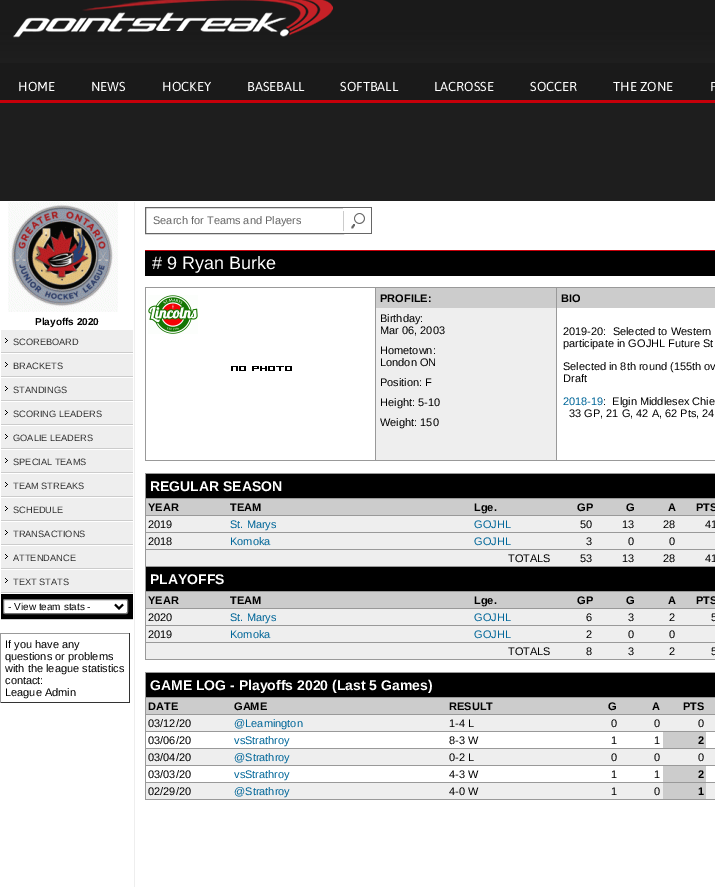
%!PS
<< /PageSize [715 887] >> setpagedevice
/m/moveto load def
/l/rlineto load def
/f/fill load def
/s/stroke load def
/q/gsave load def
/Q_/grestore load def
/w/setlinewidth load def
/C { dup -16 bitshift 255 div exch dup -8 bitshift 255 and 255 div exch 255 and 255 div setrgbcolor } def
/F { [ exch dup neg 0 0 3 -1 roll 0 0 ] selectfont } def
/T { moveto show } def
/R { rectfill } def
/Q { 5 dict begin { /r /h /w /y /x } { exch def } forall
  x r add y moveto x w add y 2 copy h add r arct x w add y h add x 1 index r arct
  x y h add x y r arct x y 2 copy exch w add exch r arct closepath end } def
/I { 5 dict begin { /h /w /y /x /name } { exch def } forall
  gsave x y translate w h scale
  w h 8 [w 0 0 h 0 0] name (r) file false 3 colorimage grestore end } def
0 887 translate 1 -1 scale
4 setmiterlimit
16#FFFFFF C
0 0 715 887 R
(1.rgb) 0 0 715 63 I
16#C6000A C
0 100 715 3 R
(2.rgb) 13 0 320 38 I
16#1A1A1A C
0 63 715 37 R
/Asap-Regular 13 F
16#FFFFFF C
(HOME) 18 91 T
(NEWS) 91 91 T
(HOCKEY) 162 91 T
(BASEBALL) 247 91 T
(SOFTBALL) 340 91 T
(LACROSSE) 434 91 T
(SOCCER) 530 91 T
(THE ZONE) 613 91 T
(P) 710 91 T
16#1E1E1E C
0 103 715 98 R
16#EEEEEE C
134 202 1 685 R
(3.rgb) 8 202 110 110 I
/LiberationSans-Bold 10 F
16#000000 C
(Playoffs 2020) 35 325 T
16#EEEEEE C
1 330 132 22 R
16#CCCCCC C
1 352 132 1 R
(4.rgb) 5 338 3 5 I
/LiberationSans-Regular 9.25 F
16#333333 C
(SCOREBOARD) 13 345 T
16#EEEEEE C
1 354 132 22 R
16#CCCCCC C
1 376 132 1 R
(4.rgb) 5 362 3 5 I
16#333333 C
(BRACKETS) 13 369 T
16#EEEEEE C
1 378 132 22 R
16#CCCCCC C
1 400 132 1 R
(4.rgb) 5 386 3 5 I
16#333333 C
(STANDINGS) 13 393 T
16#EEEEEE C
1 402 132 22 R
16#CCCCCC C
1 424 132 1 R
(4.rgb) 5 410 3 5 I
16#333333 C
(SCORING LEADERS) 13 417 T
16#EEEEEE C
1 426 132 22 R
16#CCCCCC C
1 448 132 1 R
(4.rgb) 5 434 3 5 I
16#333333 C
(GOALIE LEADERS) 13 441 T
16#EEEEEE C
1 450 132 22 R
16#CCCCCC C
1 472 132 1 R
(4.rgb) 5 458 3 5 I
16#333333 C
(SPECIAL TEAMS) 13 465 T
16#EEEEEE C
1 474 132 22 R
16#CCCCCC C
1 496 132 1 R
(4.rgb) 5 482 3 5 I
16#333333 C
(TEAM STREAKS) 13 489 T
16#EEEEEE C
1 498 132 22 R
16#CCCCCC C
1 520 132 1 R
(4.rgb) 5 506 3 5 I
16#333333 C
(SCHEDULE) 13 513 T
16#EEEEEE C
1 522 132 22 R
16#CCCCCC C
1 544 132 1 R
(4.rgb) 5 530 3 5 I
16#333333 C
(TRANSACTIONS) 13 537 T
16#EEEEEE C
1 546 132 22 R
16#CCCCCC C
1 568 132 1 R
(4.rgb) 5 554 3 5 I
16#333333 C
(ATTENDANCE) 13 561 T
16#EEEEEE C
1 570 132 22 R
16#CCCCCC C
1 592 132 1 R
(4.rgb) 5 578 3 5 I
16#333333 C
(TEXT STATS) 13 585 T
16#000000 C
1 594 132 25 R
16#CCCCCC C
1 619 132 1 R
16#FFFFFF C
3.5 599.5 124 14 1.5 Q q f Q_
16#767676 C
s
16#000000 C
2 w
115 604.5 m 4 4 l 4 -4 l s
/LiberationSans-Regular 10 F
(- View team stats -) 8 610 T
16#999999 C
0 633 130 1 R
16#333333 C
129 633 1 70 R
0 702 130 1 R
16#999999 C
0 633 1 70 R
/LiberationSans-Regular 11 F
16#000000 C
(If you have any) 5 648 T
(questions or problems) 5 660 T
(with the league statistics) 5 672 T
(contact:) 5 684 T
(League Admin) 5 696 T
16#666666 C
1 w
145.5 207.5 198 26 rectstroke
(Search for Teams and Players) 153 224 T
(5.rgb) 343 207 29 27 I
16#000000 C
145 251 570 25 R
16#C6000A C
145 250 570 1 R
/LiberationSans-Regular 18 F
16#FFFFFF C
(# 9 Ryan Burke) 152 269 T
16#999999 C
145 287 570 174 R
16#FFFFFF C
146 288 229 172 R
(6.rgb) 148 295 50 39 I
(7.rgb) 231 366 61 5 I
16#EEEEEE C
376 308 180 152 R
16#CCCCCC C
376 288 180 20 R
/LiberationSans-Bold 11 F
16#000000 C
(PROFILE:) 380 302 T
/LiberationSans-Regular 11 F
(Birthday:) 380 322 T
(Mar 06, 2003) 380 334 T
(Hometown:) 380 354 T
(London ON) 380 366 T
(Position: F) 380 386 T
(Height: 5-10) 380 406 T
(Weight: 150) 380 426 T
16#FFFFFF C
557 308 158 152 R
16#CCCCCC C
557 288 158 20 R
/LiberationSans-Bold 11 F
16#000000 C
(BIO) 561 302 T
/LiberationSans-Regular 11 F
(2019-20:  Selected to Western) 563 335 T
(participate in GOJHL Future St) 563 347 T
(Selected in 8th round \(155th ov) 563 370 T
(Draft) 563 382 T
16#006699 C
(2018-19) 563 405 T
16#000000 C
(:  Elgin Middlesex Chie) 603 405 T
(33 GP, 21 G, 42 A, 62 Pts, 24) 569 417 T
16#999999 C
145 473 570 187 R
16#000000 C
146 474 569 24 R
/LiberationSans-Bold 14 F
16#FFFFFF C
(REGULAR SEASON) 150 491 T
16#CCCCCC C
146 499 569 16 R
/LiberationSans-Bold 11 F
16#000000 C
(YEAR) 148 511 T
(TEAM) 230 511 T
(Lge.) 474 511 T
(GP) 577 511 T
(G) 626 511 T
(A) 668 511 T
(PTS) 696 511 T
16#EEEEEE C
146 516 569 16 R
/LiberationSans-Regular 11 F
16#000000 C
(2019) 148 528 T
16#006699 C
(St. Marys) 230 528 T
(GOJHL) 474 528 T
16#000000 C
(50) 580 528 T
(13) 622 528 T
(28) 663 528 T
(41) 705 528 T
16#EEEEEE C
146 533 569 16 R
16#000000 C
(2018) 148 545 T
16#006699 C
(Komoka) 230 545 T
(GOJHL) 474 545 T
16#000000 C
(3) 586 545 T
(0) 628 545 T
(0) 669 545 T
16#EEEEEE C
146 550 569 16 R
16#000000 C
(TOTALS) 508 562 T
(53) 580 562 T
(13) 622 562 T
(28) 663 562 T
(41) 705 562 T
146 567 569 24 R
/LiberationSans-Bold 14 F
16#FFFFFF C
(PLAYOFFS) 150 584 T
16#CCCCCC C
146 592 569 16 R
/LiberationSans-Bold 11 F
16#000000 C
(YEAR) 148 604 T
(TEAM) 230 604 T
(Lge.) 474 604 T
(GP) 577 604 T
(G) 626 604 T
(A) 668 604 T
(PTS) 696 604 T
16#EEEEEE C
146 609 569 16 R
/LiberationSans-Regular 11 F
16#000000 C
(2020) 148 621 T
16#006699 C
(St. Marys) 230 621 T
(GOJHL) 474 621 T
16#000000 C
(6) 586 621 T
(3) 628 621 T
(2) 669 621 T
(5) 711 621 T
16#EEEEEE C
146 626 569 16 R
16#000000 C
(2019) 148 638 T
16#006699 C
(Komoka) 230 638 T
(GOJHL) 474 638 T
16#000000 C
(2) 586 638 T
(0) 628 638 T
(0) 669 638 T
16#EEEEEE C
146 643 569 16 R
16#000000 C
(TOTALS) 508 655 T
(8) 586 655 T
(3) 628 655 T
(2) 669 655 T
(5) 711 655 T
16#999999 C
145 672 570 128 R
16#000000 C
146 673 569 24 R
/LiberationSans-Bold 14 F
16#FFFFFF C
(GAME LOG - Playoffs 2020 \(Last 5 Games\)) 150 690 T
16#CCCCCC C
146 698 569 16 R
/LiberationSans-Bold 11 F
16#000000 C
(DATE) 148 710 T
(GAME) 234 710 T
(RESULT) 449 710 T
(G) 608 710 T
(A) 652 710 T
(PTS) 683 710 T
16#EEEEEE C
146 715 569 16 R
/LiberationSans-Regular 11 F
16#000000 C
(03/12/20) 148 727 T
16#006699 C
(@Leamington) 234 727 T
16#000000 C
(1-4 L) 449 727 T
(0) 611 727 T
(0) 654 727 T
(0) 698 727 T
16#FFFFFF C
146 732 569 16 R
16#000000 C
(03/06/20) 148 744 T
16#006699 C
(vsStrathroy) 234 744 T
16#000000 C
(8-3 W) 449 744 T
(1) 611 744 T
(1) 654 744 T
16#CCCCCC C
663 732 43 16 R
/LiberationSans-Bold 11 F
16#000000 C
(2) 698 744 T
16#EEEEEE C
146 749 569 16 R
/LiberationSans-Regular 11 F
16#000000 C
(03/04/20) 148 761 T
16#006699 C
(@Strathroy) 234 761 T
16#000000 C
(0-2 L) 449 761 T
(0) 611 761 T
(0) 654 761 T
(0) 698 761 T
16#FFFFFF C
146 766 569 16 R
16#000000 C
(03/03/20) 148 778 T
16#006699 C
(vsStrathroy) 234 778 T
16#000000 C
(4-3 W) 449 778 T
(1) 611 778 T
(1) 654 778 T
16#CCCCCC C
663 766 43 16 R
/LiberationSans-Bold 11 F
16#000000 C
(2) 698 778 T
16#EEEEEE C
146 783 569 16 R
/LiberationSans-Regular 11 F
16#000000 C
(02/29/20) 148 795 T
16#006699 C
(@Strathroy) 234 795 T
16#000000 C
(4-0 W) 449 795 T
(1) 611 795 T
(0) 654 795 T
16#CCCCCC C
663 783 43 16 R
/LiberationSans-Bold 11 F
16#000000 C
(1) 698 795 T
showpage
